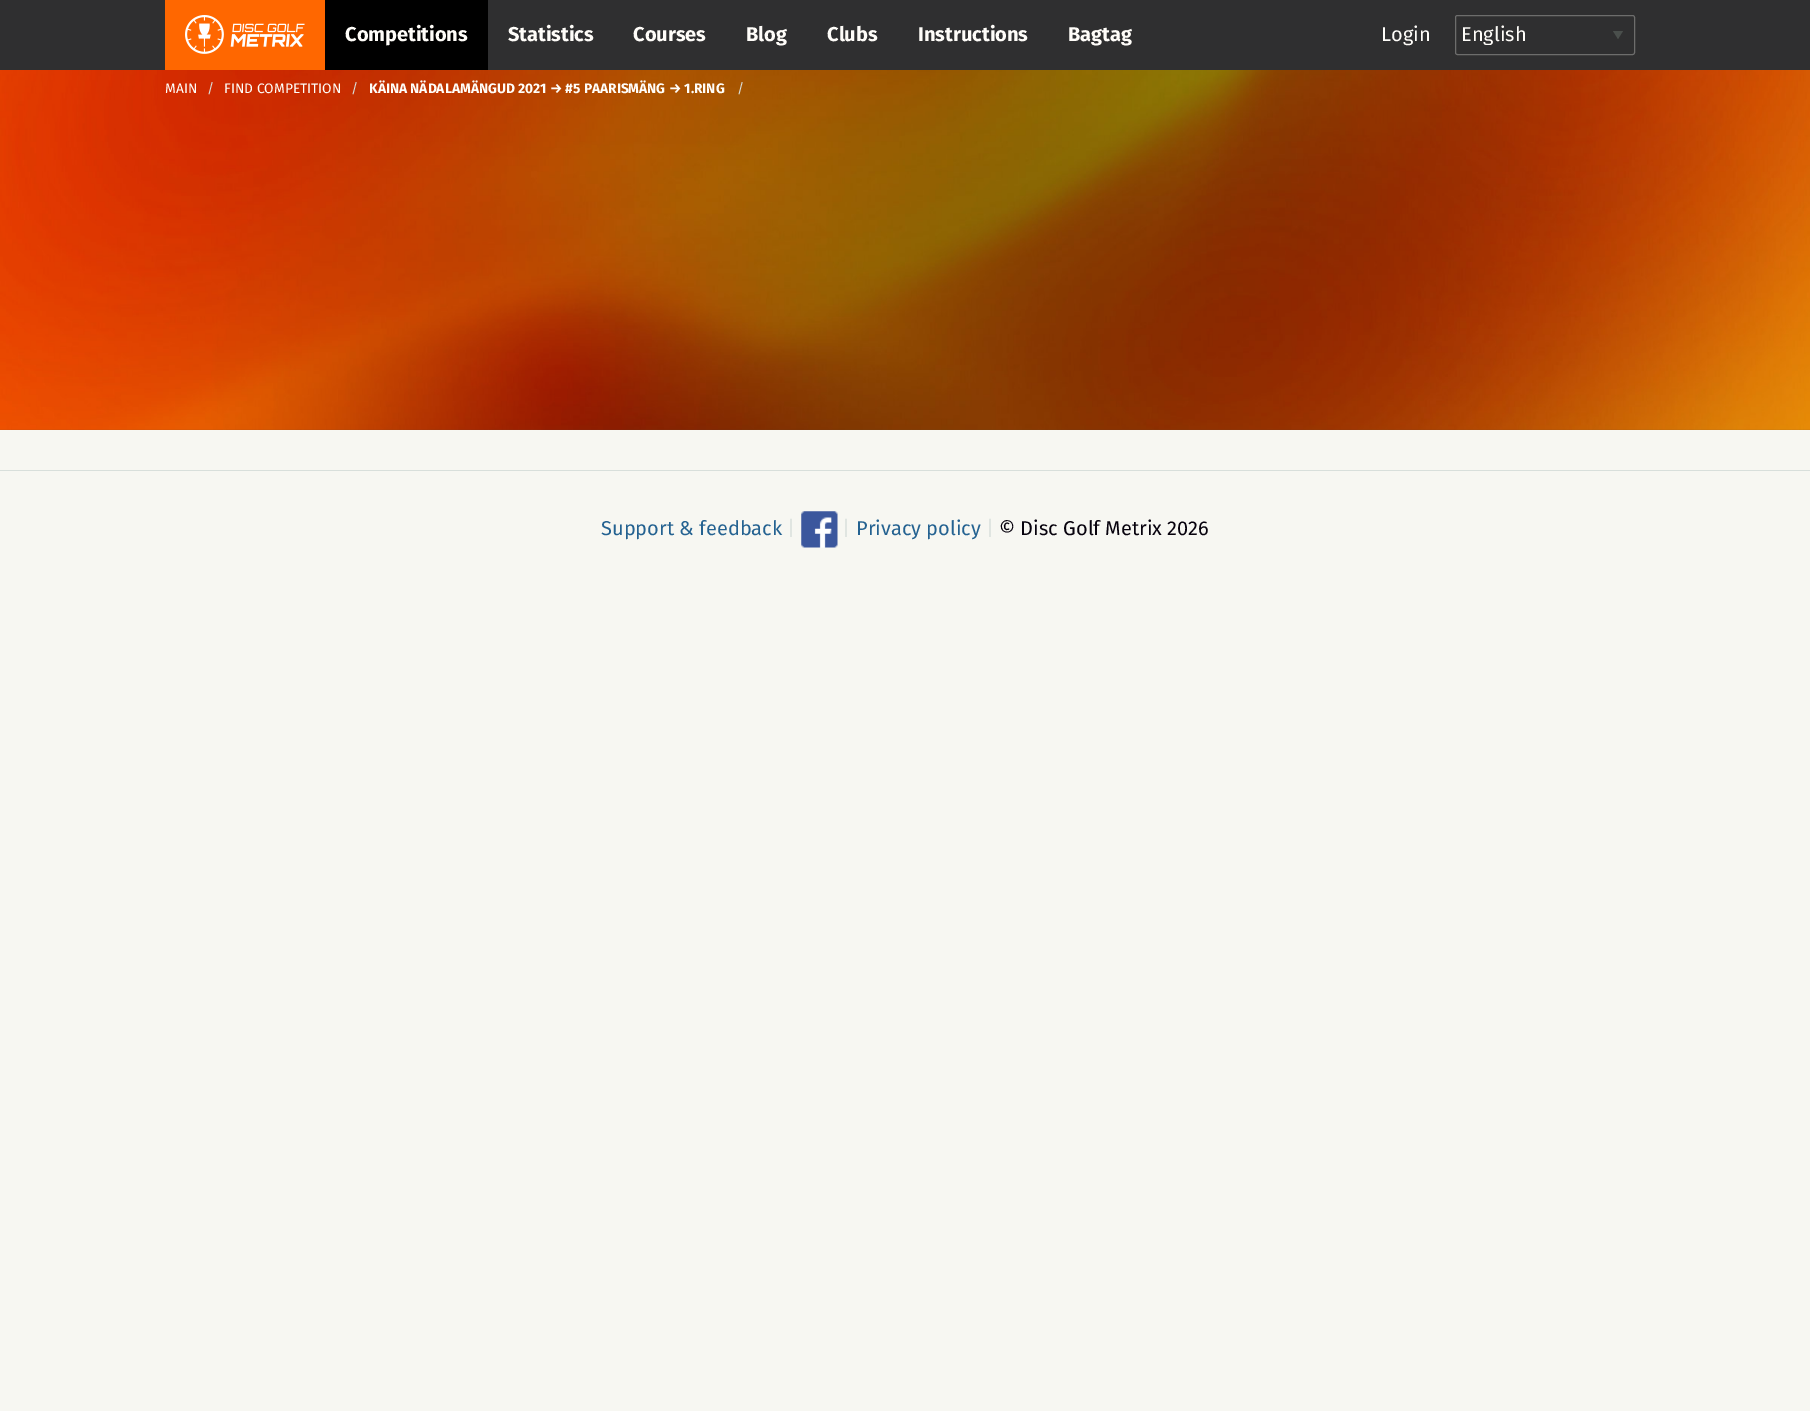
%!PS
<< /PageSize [1810 1411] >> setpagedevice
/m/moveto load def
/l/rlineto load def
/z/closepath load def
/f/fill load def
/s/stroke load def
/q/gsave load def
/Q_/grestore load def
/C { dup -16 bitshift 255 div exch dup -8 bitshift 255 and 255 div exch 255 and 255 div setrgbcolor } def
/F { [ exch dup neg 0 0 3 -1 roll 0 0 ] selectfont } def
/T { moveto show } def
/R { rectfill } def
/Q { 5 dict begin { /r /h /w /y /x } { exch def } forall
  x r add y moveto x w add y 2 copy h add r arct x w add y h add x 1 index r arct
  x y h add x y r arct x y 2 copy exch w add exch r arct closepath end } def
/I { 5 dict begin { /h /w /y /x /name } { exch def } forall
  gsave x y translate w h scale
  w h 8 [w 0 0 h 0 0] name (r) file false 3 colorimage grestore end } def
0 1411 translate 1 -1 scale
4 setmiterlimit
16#F7F7F2 C
0 0 1810 1411 R
16#2F2F30 C
0 0 1810 70 R
16#FF6700 C
165 0 160 70 R
(1.rgb) 185 15 120 39 I
16#000000 C
325 0 163 70 R
/FiraSans-Bold 20 F
16#FFFDF9 C
(Competitions) 345 41 T
(Statistics) 508 41 T
(Courses) 633 41 T
(Blog) 746 41 T
(Clubs) 827 41 T
(Instructions) 918 41 T
(Bagtag) 1068 41 T
/FiraSans-Regular 20 F
(Login) 1381 41 T
16#4A4F4C C
1613 31 m 10 0 l -5 8 l z f
16#6D6D6C C
1455.5 15.5 179 39 2 Q s
q
1461 25 143 20 rectclip
16#FFFDF9 C
(English) 1461 41 T
Q_
(2.rgb) 0 70 1810 360 I
/FiraSans-Regular 13.75 F
16#FFFDF9 C
(MAIN) 165 93 T
16#D8DFDB C
(/) 207 93 T
16#FFFDF9 C
(FIND COMPETITION) 224 93 T
16#D8DFDB C
(/) 351 93 T
/FiraSans-Bold 13.75 F
16#FFFDF9 C
(KÄINA NÄDALAMÄNGUD 2021 → #5 PAARISMÄNG → 1.RING) 369 93 T
/FiraSans-Regular 13.75 F
16#D8DFDB C
(/) 737 93 T
0 470 1810 1 R
/FiraSans-Regular 20 F
16#246291 C
(Support & feedback) 601 535 T
16#D8DFDB C
(|) 787 535 T
(3.rgb) 801 511 37 37 I
(|) 842 535 T
16#246291 C
(Privacy policy) 856 535 T
16#D8DFDB C
(|) 986 535 T
16#07020D C
(© Disc Golf Metrix 2026) 999 535 T
showpage
